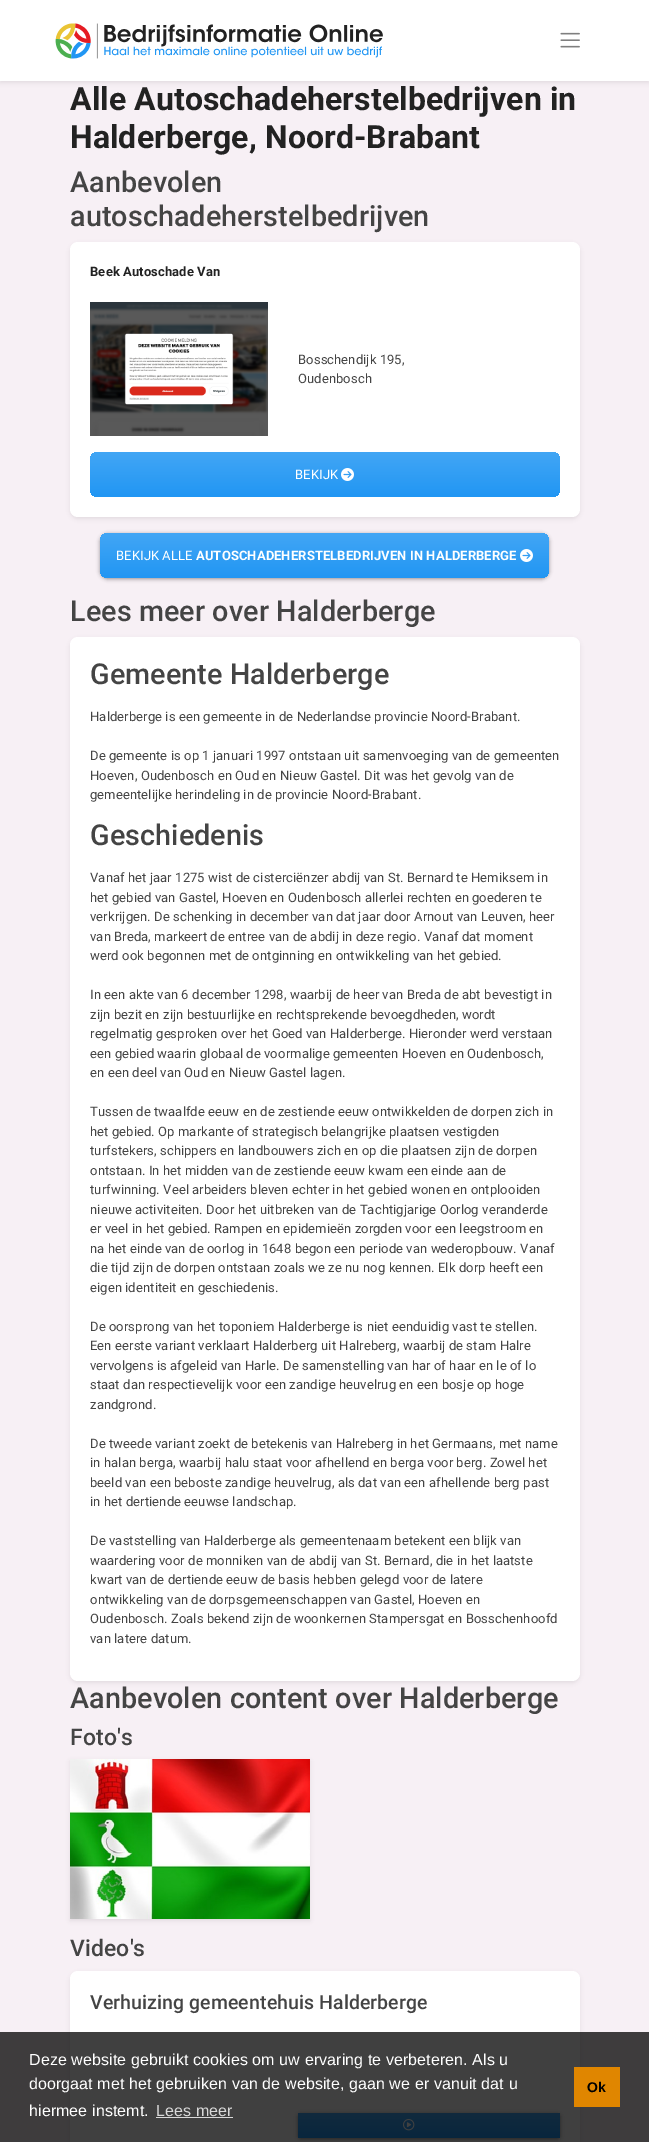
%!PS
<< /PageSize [649 2142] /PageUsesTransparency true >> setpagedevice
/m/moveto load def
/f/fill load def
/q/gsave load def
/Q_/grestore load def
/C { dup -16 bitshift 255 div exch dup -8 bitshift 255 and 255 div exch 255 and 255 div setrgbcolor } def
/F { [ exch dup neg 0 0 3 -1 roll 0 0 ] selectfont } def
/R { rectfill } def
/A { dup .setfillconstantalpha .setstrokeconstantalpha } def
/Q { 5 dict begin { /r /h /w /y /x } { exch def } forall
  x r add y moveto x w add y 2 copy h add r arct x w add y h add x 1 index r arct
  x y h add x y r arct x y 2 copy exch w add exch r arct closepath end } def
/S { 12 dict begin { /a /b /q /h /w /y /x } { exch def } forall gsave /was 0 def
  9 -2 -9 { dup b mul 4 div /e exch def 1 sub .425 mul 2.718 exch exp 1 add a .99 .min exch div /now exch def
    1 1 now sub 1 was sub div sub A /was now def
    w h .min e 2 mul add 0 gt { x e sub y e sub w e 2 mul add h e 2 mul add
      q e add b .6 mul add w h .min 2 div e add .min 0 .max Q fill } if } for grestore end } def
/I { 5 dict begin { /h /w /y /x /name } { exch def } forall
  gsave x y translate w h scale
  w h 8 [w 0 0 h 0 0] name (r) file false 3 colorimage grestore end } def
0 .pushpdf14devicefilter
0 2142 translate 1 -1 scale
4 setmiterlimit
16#F7F0F5 C
0 0 649 2142 R
16#000000 C
0 2 649 81 0 2 .07 S
16#FFFFFF C
0 0 649 81 R
(1.rgb) 55 23 328 36 I
(2.rgb) 560 32 20 16 I
/Roboto-Bold 32 F
16#222222 C
70 110 m .1 0 (Alle Autoschadeherstelbedrijven in) ashow
70 148 m .1 0 (Halderberge, Noord-Brabant) ashow
/Roboto-Medium 28.75 F
16#444444 C
70 192 m .1 0 (Aanbevolen) ashow
70 226 m .1 0 (autoschadeherstelbedrijven) ashow
16#000000 C
70 244 510 275 8 2 .07 S
16#FFFFFF C
70 242 510 275 8 Q f
/Roboto-Bold 13 F
16#222222 C
90 276 m .1 0 (Beek Autoschade Van) ashow
(3.rgb) 90 302 178 134 I
/Roboto-Regular 13 F
16#444444 C
298 364 m .1 0 (Bosschendijk 195,) ashow
298 383 m .1 0 (Oudenbosch) ashow
q 90 452 470 45 8 Q clip newpath
<< /ShadingType 2 /ColorSpace /DeviceRGB /Coords [325 452 325 497] /Extend [true true] /Function << /FunctionType 2 /Domain [0 1] /C0 [.259 .651 .961] /C1 [.129 .588 .953] /N 1 >> >> shfill Q_
16#FFFFFF C
295 479 m .1 0 (BEKIJK) ashow
(4.rgb) 341 468 13 13 I
16#000000 C
100 534 449 45 8 2 .4 S
q 100 533 449 45 8 Q clip newpath
<< /ShadingType 2 /ColorSpace /DeviceRGB /Coords [325 533 325 578] /Extend [true true] /Function << /FunctionType 2 /Domain [0 1] /C0 [.259 .651 .961] /C1 [.129 .588 .953] /N 1 >> >> shfill Q_
16#FFFFFF C
116 560 m .1 0 (BEKIJK ALLE) ashow
/Roboto-Bold 13 F
196 560 m .1 0 (AUTOSCHADEHERSTELBEDRIJVEN IN HALDERBERGE) ashow
(4.rgb) 520 549 13 13 I
/Roboto-Medium 28.75 F
16#444444 C
70 621 m .1 0 (Lees meer over Halderberge) ashow
16#000000 C
70 639 510 1044 8 2 .07 S
16#FFFFFF C
70 637 510 1044 8 Q f
16#444444 C
90 684 m .1 0 (Gemeente Halderberge) ashow
/Roboto-Regular 13 F
90 721 m .1 0 (Halderberge is een gemeente in de Nederlandse provincie Noord-Brabant.) ashow
90 760 m .1 0 (De gemeente is op 1 januari 1997 ontstaan uit samenvoeging van de gemeenten) ashow
90 780 m .1 0 (Hoeven, Oudenbosch en Oud en Nieuw Gastel. Dit was het gevolg van de) ashow
90 799 m .1 0 (gemeentelijke herindeling in de provincie Noord-Brabant.) ashow
/Roboto-Medium 28.75 F
90 845 m .1 0 (Geschiedenis) ashow
/Roboto-Regular 13 F
90 882 m .1 0 (Vanaf het jaar 1275 wist de cisterciënzer abdij van St. Bernard te Hemiksem in) ashow
90 902 m .1 0 (het gebied van Gastel, Hoeven en Oudenbosch allerlei rechten en goederen te) ashow
90 921 m .1 0 (verkrijgen. De schenking in december van dat jaar door Arnout van Leuven, heer) ashow
90 941 m .1 0 (van Breda, markeert de entree van de abdij in deze regio. Vanaf dat moment) ashow
90 960 m .1 0 (werd ook begonnen met de ontginning en ontwikkeling van het gebied.) ashow
90 999 m .1 0 (In een akte van 6 december 1298, waarbij de heer van Breda de abt bevestigt in) ashow
90 1019 m .1 0 (zijn bezit en zijn bestuurlijke en rechtsprekende bevoegdheden, wordt) ashow
90 1038 m .1 0 (regelmatig gesproken over het Goed van Halderberge. Hieronder werd verstaan) ashow
90 1058 m .1 0 (een gebied waarin globaal de voormalige gemeenten Hoeven en Oudenbosch,) ashow
90 1077 m .1 0 (en een deel van Oud en Nieuw Gastel lagen.) ashow
90 1116 m .1 0 (Tussen de twaalfde eeuw en de zestiende eeuw ontwikkelden de dorpen zich in) ashow
90 1136 m .1 0 (het gebied. Op markante of strategisch belangrijke plaatsen vestigden) ashow
90 1155 m .1 0 (turfstekers, schippers en landbouwers zich en op die plaatsen zijn de dorpen) ashow
90 1175 m .1 0 (ontstaan. In het midden van de zestiende eeuw kwam een einde aan de) ashow
90 1194 m .1 0 (turfwinning. Veel arbeiders bleven echter in het gebied wonen en ontplooiden) ashow
90 1214 m .1 0 (nieuwe activiteiten. Door het uitbreken van de Tachtigjarige Oorlog veranderde) ashow
90 1233 m .1 0 (er veel in het gebied. Rampen en epidemieën zorgden voor een leegstroom en) ashow
90 1253 m .1 0 (na het einde van de oorlog in 1648 begon een periode van wederopbouw. Vanaf) ashow
90 1272 m .1 0 (die tijd zijn de dorpen ontstaan zoals we ze nu nog kennen. Elk dorp heeft een) ashow
90 1292 m .1 0 (eigen identiteit en geschiedenis.) ashow
90 1331 m .1 0 (De oorsprong van het toponiem Halderberge is niet eenduidig vast te stellen.) ashow
90 1350 m .1 0 (Een eerste variant verklaart Halderberg uit Halreberg, waarbij de stam Halre) ashow
90 1370 m .1 0 (vervolgens is afgeleid van Harle. De samenstelling van har of haar en le of lo) ashow
90 1389 m .1 0 (staat dan respectievelijk voor een zandige heuvelrug en een bosje op hoge) ashow
90 1409 m .1 0 (zandgrond.) ashow
90 1448 m .1 0 (De tweede variant zoekt de betekenis van Halreberg in het Germaans, met name) ashow
90 1467 m .1 0 (in halan berga, waarbij halu staat voor afhellend en berga voor berg. Zowel het) ashow
90 1487 m .1 0 (beeld van een beboste zandige heuvelrug, als dat van een afhellende berg past) ashow
90 1506 m .1 0 (in het dertiende eeuwse landschap.) ashow
90 1545 m .1 0 (De vaststelling van Halderberge als gemeentenaam betekent een blijk van) ashow
90 1565 m .1 0 (waardering voor de monniken van de abdij van St. Bernard, die in het laatste) ashow
90 1584 m .1 0 (kwart van de dertiende eeuw de basis hebben gelegd voor de latere) ashow
90 1604 m .1 0 (ontwikkeling van de dorpsgemeenschappen van Gastel, Hoeven en) ashow
90 1623 m .1 0 (Oudenbosch. Zoals bekend zijn de woonkernen Stampersgat en Bosschenhoofd) ashow
90 1643 m .1 0 (van latere datum.) ashow
/Roboto-Medium 28.75 F
70 1708 m .1 0 (Aanbevolen content over Halderberge) ashow
/Roboto-Medium 23 F
70 1745 m .1 0 (Foto's) ashow
16#000000 C
70 1761 240 160 0 2 .07 S
(5.rgb) 70 1759 240 160 I
16#444444 C
70 1956 m .1 0 (Video's) ashow
16#000000 C
70 1973 510 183 8 2 .07 S
16#FFFFFF C
70 1971 510 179 8 Q f
/Roboto-Medium 19.5 F
16#444444 C
90 2009 m .1 0 (Verhuizing gemeentehuis Halderberge) ashow
16#000000 C
298 2114 262 25 3 2 .4 S
q 298 2113 262 25 3 Q clip newpath
<< /ShadingType 2 /ColorSpace /DeviceRGB /Coords [429 2113 429 2138] /Extend [true true] /Function << /FunctionType 2 /Domain [0 1] /C0 [.259 .651 .961] /C1 [.129 .588 .953] /N 1 >> >> shfill Q_
(6.rgb) 403 2119 12 12 I
0.75 A
0 2032 649 110 R
/LiberationSans-Regular 16 F
1 A
16#FFFFFF C
29 2065 m .1 0 (Deze website gebruikt cookies om uw ervaring te verbeteren. Als u) ashow
29 2089 m .1 0 (doorgaat met het gebruiken van de website, gaan we er vanuit dat u) ashow
29 2116 m .1 0 (hiermee instemt.) ashow
16#D9D9D9 C
156 2116 m .1 0 (Lees meer) ashow
156 2117 77 1 R
16#E08600 C
574 2067 46 40 R
/LiberationSans-Bold 14 F
16#000000 C
587 2092 m .1 0 (Ok) ashow
.poppdf14devicefilter showpage
